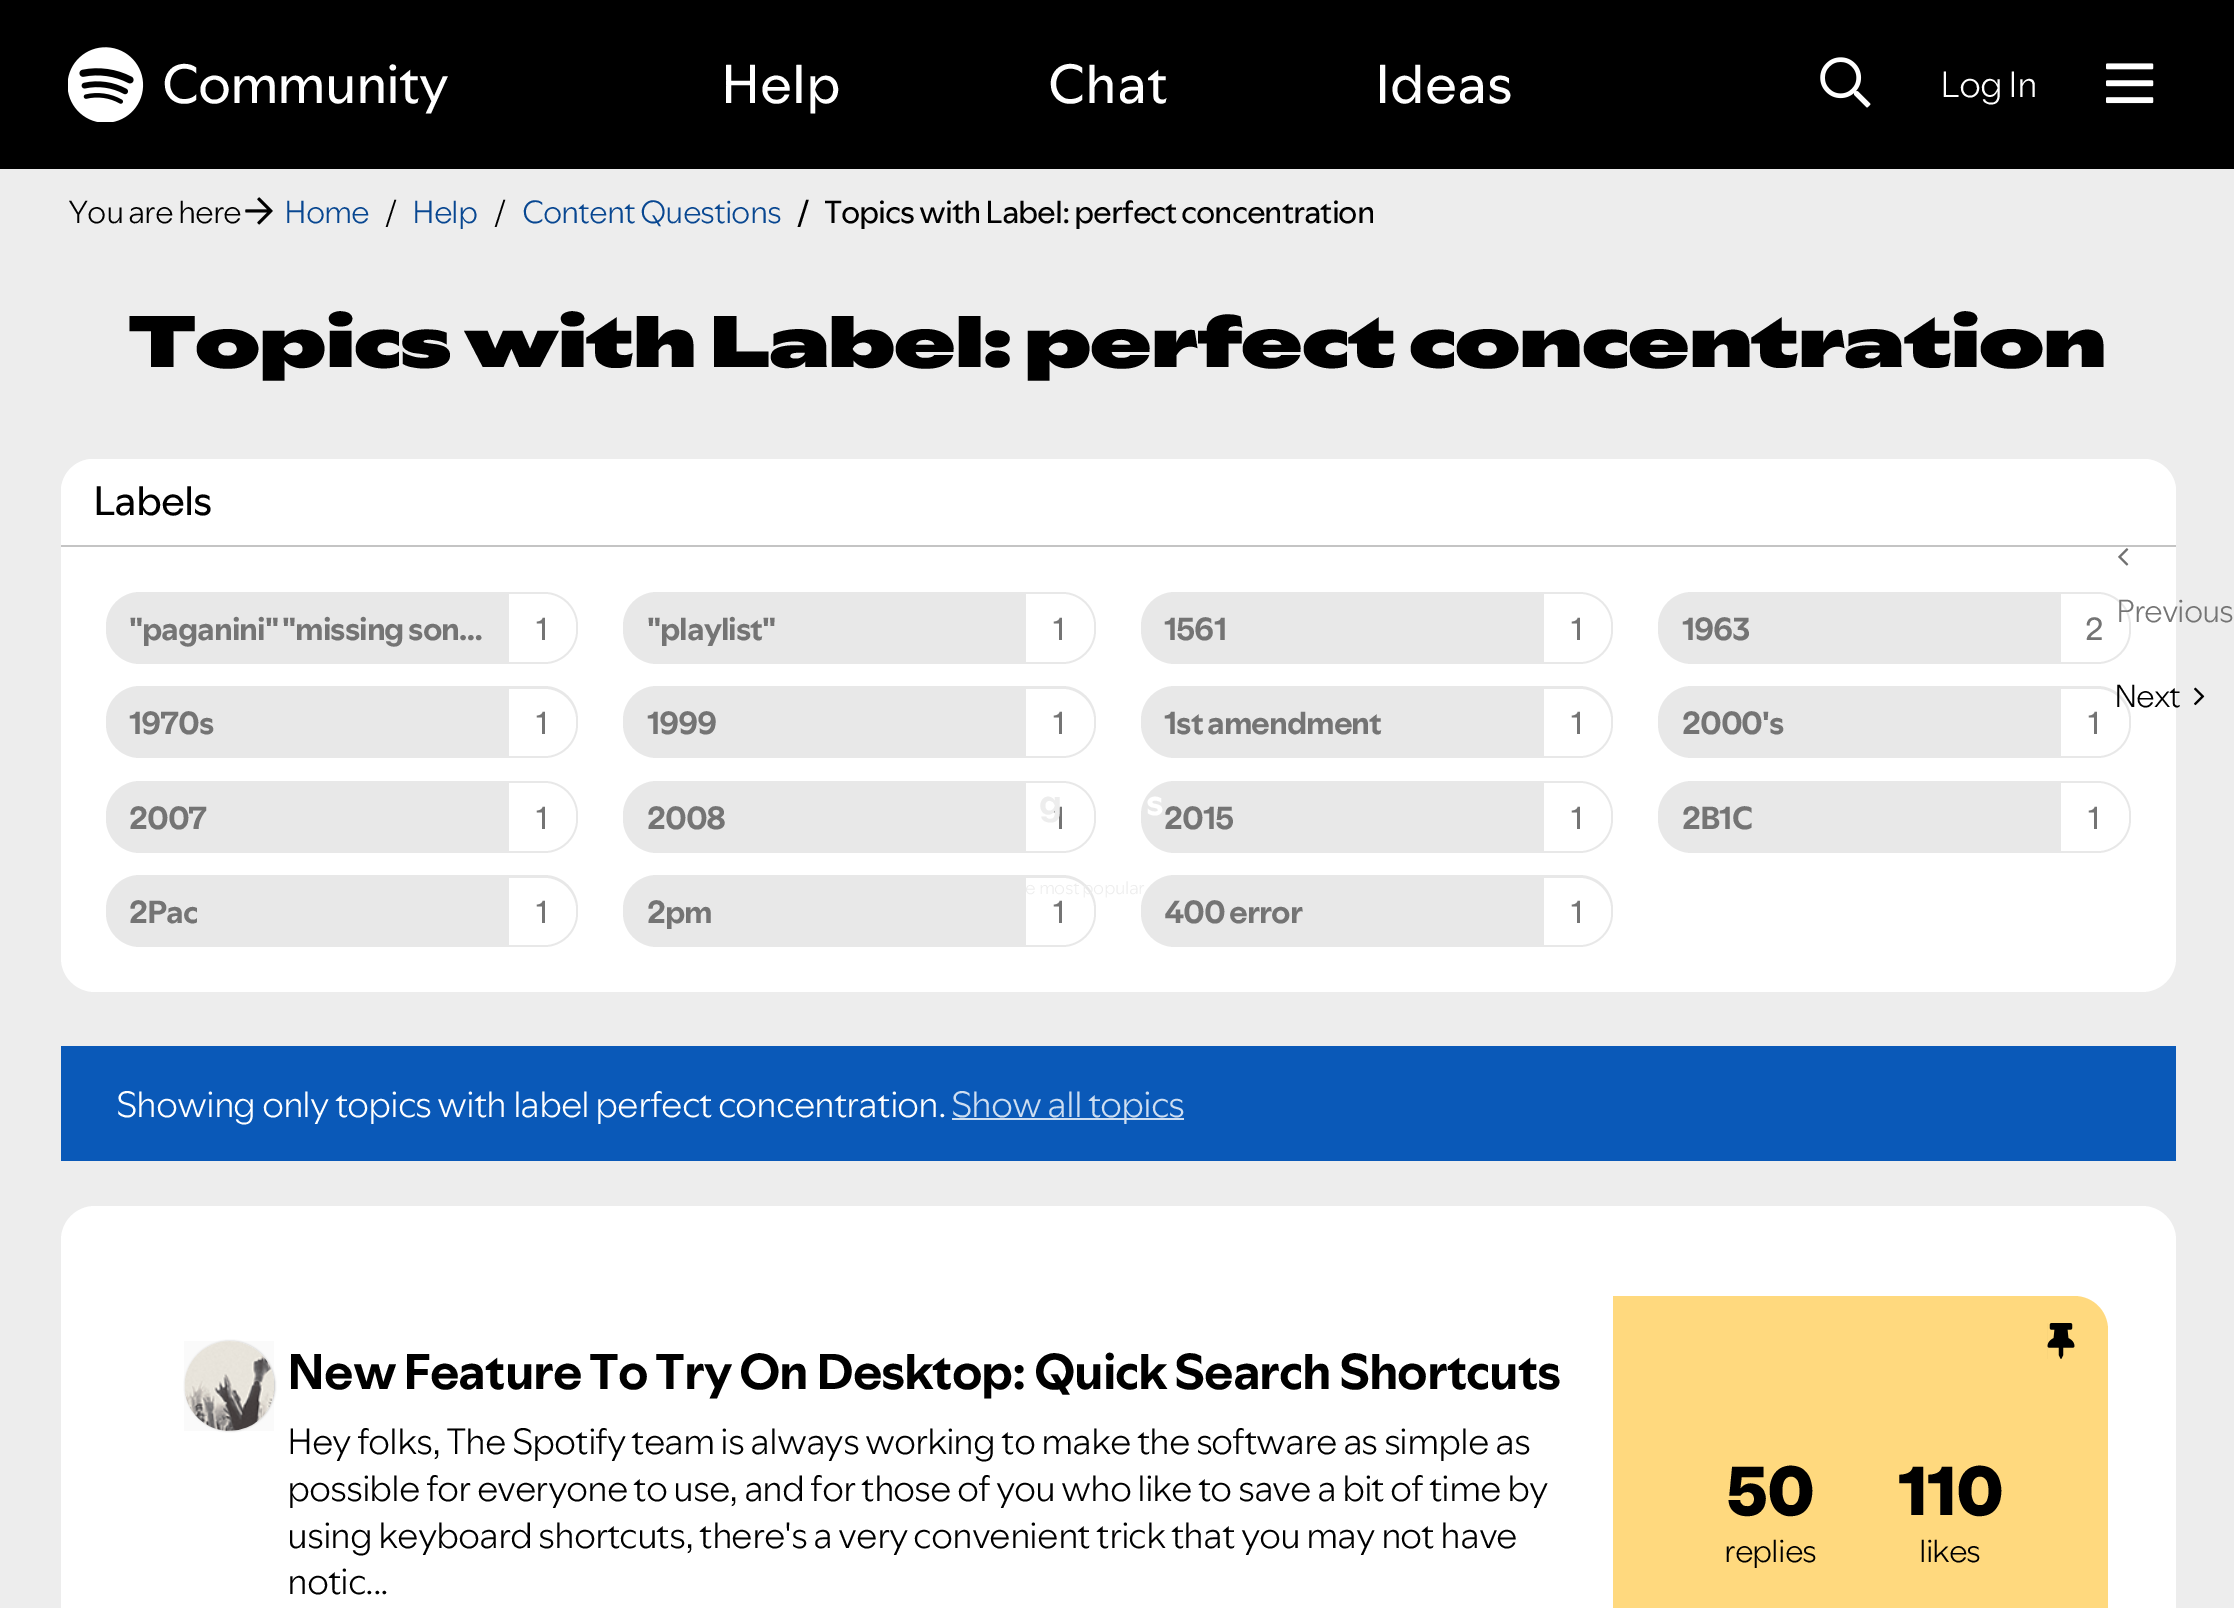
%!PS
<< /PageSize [2234 1608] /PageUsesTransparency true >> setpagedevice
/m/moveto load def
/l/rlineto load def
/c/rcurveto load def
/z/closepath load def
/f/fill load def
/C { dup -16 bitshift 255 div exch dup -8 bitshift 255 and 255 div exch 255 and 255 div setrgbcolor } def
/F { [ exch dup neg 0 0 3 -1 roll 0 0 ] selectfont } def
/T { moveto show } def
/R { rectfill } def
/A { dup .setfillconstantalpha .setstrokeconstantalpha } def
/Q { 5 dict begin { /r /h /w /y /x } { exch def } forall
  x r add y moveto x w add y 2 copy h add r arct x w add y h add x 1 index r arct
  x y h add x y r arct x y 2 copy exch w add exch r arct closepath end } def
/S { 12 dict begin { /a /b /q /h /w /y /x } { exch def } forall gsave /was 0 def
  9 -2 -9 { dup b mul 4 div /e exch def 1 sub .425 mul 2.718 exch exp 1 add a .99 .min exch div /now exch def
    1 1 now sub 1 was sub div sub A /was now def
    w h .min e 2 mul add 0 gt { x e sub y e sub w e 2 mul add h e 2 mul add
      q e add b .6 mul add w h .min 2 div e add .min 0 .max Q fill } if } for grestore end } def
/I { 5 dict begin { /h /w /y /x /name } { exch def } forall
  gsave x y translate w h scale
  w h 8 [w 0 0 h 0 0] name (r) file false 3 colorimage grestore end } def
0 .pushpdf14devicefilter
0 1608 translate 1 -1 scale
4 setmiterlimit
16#EDEDED C
0 0 2234 1608 R
16#000000 C
0 0 2234 169 R
(1.rgb) 68 47 76 75 I
/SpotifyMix-Regular 54 F
16#FFFFFF C
162 103 m -1.12 0 (Community) ashow
(Help) 721 103 T
(Chat) 1048 103 T
(Ideas) 1375 103 T
(2.rgb) 1820 57 51 51 I
/SpotifyMix-Light 36 F
1940 97 m -1.12 0 (Log In) ashow
(3.rgb) 2106 63 48 41 I
/SpotifyMix-Light 31.5 F
16#000000 C
68 223 m -1.12 0 (You are here) ashow
(4.rgb) 245 197 28 28 I
16#084791 C
284 223 m -1.12 0 (Home) ashow
16#000000 C
385 223 m -1.12 0 (/) ashow
16#084791 C
412 223 m -1.12 0 (Help) ashow
16#000000 C
494 223 m -1.12 0 (/) ashow
16#084791 C
522 223 m -1.12 0 (Content Questions) ashow
/SpotifyMix-Regular 31.5 F
16#000000 C
797 223 m -1.12 0 (/) ashow
824 223 m -1.12 0 (Topics with Label: perfect concentration) ashow
16#FFFFFF C
61 459 2115 533 34 Q f
16#E8E8E8 C
1141 781 472 72 34 Q f
/SpotifyMix-Bold 36 F
16#FFFFFF C
1146 815 m -.5 0 (s) ashow
16#E8E8E8 C
623 875 473 72 34 Q f
16#FFFFFF C
1026 878 m 36 0 l 17.5 0 32 14.5 32 32 c 0 3 l 0 17.5 -14.5 32 -32 32 c -36 0 l z f
16#E8E8E8 C
1141 875 472 72 34 Q f
/SpotifyMix-Light 18 F
16#EDEDED C
1025 894 m -.5 0 (e most popular) ashow
16#E8E8E8 C
623 781 473 72 34 Q f
16#FFFFFF C
1026 783 m 36 0 l 17.5 0 32 14.5 32 32 c 0 4 l 0 17.5 -14.5 32 -32 32 c -36 0 l z f
/SpotifyMix-Regular 31.5 F
16#747474 C
1053 829 m -1.12 0 (1) ashow
/SpotifyMix-Bold 36 F
16#EDEDED C
1039 815 m -.5 0 (g) ashow
/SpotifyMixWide-Black 72 F
16#000000 C
128 367 m -1.12 0 (Topics with Label: perfect concentration) ashow
16#FFFFFF C
93 459 m 2051 0 l 17.5 0 32 14.5 32 32 c 0 56 l -2115 0 l 0 -56 l 0 -17.5 14.5 -32 32 -32 c z f
16#C4C4C4 C
61 545 2115 2 R
/SpotifyMix-Regular 40.5 F
16#000000 C
93 515 m -1.12 0 (Labels) ashow
16#E8E8E8 C
106 592 472 72 34 Q f
/SpotifyMix-Bold 31.5 F
16#747474 C
129 640 m -1.12 0 ("paganini" "missing son…) ashow
16#FFFFFF C
509 594 m 35 0 l 17.5 0 32 14.5 32 32 c 0 4 l 0 17.5 -14.5 32 -32 32 c -35 0 l z f
/SpotifyMix-Regular 31.5 F
16#747474 C
536 640 m -1.12 0 (1) ashow
16#E8E8E8 C
623 592 473 72 34 Q f
/SpotifyMix-Bold 31.5 F
16#747474 C
647 640 m -1.12 0 ("playlist") ashow
16#FFFFFF C
1026 594 m 36 0 l 17.5 0 32 14.5 32 32 c 0 4 l 0 17.5 -14.5 32 -32 32 c -36 0 l z f
/SpotifyMix-Regular 31.5 F
16#747474 C
1053 640 m -1.12 0 (1) ashow
16#E8E8E8 C
1141 592 472 72 34 Q f
/SpotifyMix-Bold 31.5 F
16#747474 C
1164 640 m -1.12 0 (1561) ashow
16#FFFFFF C
1544 594 m 35 0 l 17.5 0 32 14.5 32 32 c 0 4 l 0 17.5 -14.5 32 -32 32 c -35 0 l z f
/SpotifyMix-Regular 31.5 F
16#747474 C
1571 640 m -1.12 0 (1) ashow
16#E8E8E8 C
1658 592 473 72 34 Q f
/SpotifyMix-Bold 31.5 F
16#747474 C
1682 640 m -1.12 0 (1963) ashow
16#FFFFFF C
2061 594 m 36 0 l 17.5 0 32 14.5 32 32 c 0 4 l 0 17.5 -14.5 32 -32 32 c -36 0 l z f
/SpotifyMix-Regular 31.5 F
16#747474 C
2085 640 m -1.12 0 (2) ashow
16#E8E8E8 C
106 686 472 72 34 Q f
/SpotifyMix-Bold 31.5 F
16#747474 C
129 734 m -1.12 0 (1970s) ashow
16#FFFFFF C
509 689 m 35 0 l 17.5 0 32 14.5 32 32 c 0 3 l 0 17.5 -14.5 32 -32 32 c -35 0 l z f
/SpotifyMix-Regular 31.5 F
16#747474 C
536 734 m -1.12 0 (1) ashow
16#E8E8E8 C
623 686 473 72 34 Q f
/SpotifyMix-Bold 31.5 F
16#747474 C
647 734 m -1.12 0 (1999) ashow
16#FFFFFF C
1026 689 m 36 0 l 17.5 0 32 14.5 32 32 c 0 3 l 0 17.5 -14.5 32 -32 32 c -36 0 l z f
/SpotifyMix-Regular 31.5 F
16#747474 C
1053 734 m -1.12 0 (1) ashow
16#E8E8E8 C
1141 686 472 72 34 Q f
/SpotifyMix-Bold 31.5 F
16#747474 C
1164 734 m -1.12 0 (1st amendment) ashow
16#FFFFFF C
1544 689 m 35 0 l 17.5 0 32 14.5 32 32 c 0 3 l 0 17.5 -14.5 32 -32 32 c -35 0 l z f
/SpotifyMix-Regular 31.5 F
16#747474 C
1571 734 m -1.12 0 (1) ashow
16#E8E8E8 C
1658 686 473 72 34 Q f
/SpotifyMix-Bold 31.5 F
16#747474 C
1682 734 m -1.12 0 (2000's) ashow
16#FFFFFF C
2061 689 m 36 0 l 17.5 0 32 14.5 32 32 c 0 3 l 0 17.5 -14.5 32 -32 32 c -36 0 l z f
/SpotifyMix-Regular 31.5 F
16#747474 C
2088 734 m -1.12 0 (1) ashow
16#E8E8E8 C
106 781 472 72 34 Q f
/SpotifyMix-Bold 31.5 F
16#747474 C
129 829 m -1.12 0 (2007) ashow
16#FFFFFF C
509 783 m 35 0 l 17.5 0 32 14.5 32 32 c 0 4 l 0 17.5 -14.5 32 -32 32 c -35 0 l z f
/SpotifyMix-Regular 31.5 F
16#747474 C
536 829 m -1.12 0 (1) ashow
/SpotifyMix-Bold 31.5 F
647 829 m -1.12 0 (2008) ashow
1164 829 m -1.12 0 (2015) ashow
16#FFFFFF C
1544 783 m 35 0 l 17.5 0 32 14.5 32 32 c 0 4 l 0 17.5 -14.5 32 -32 32 c -35 0 l z f
/SpotifyMix-Regular 31.5 F
16#747474 C
1571 829 m -1.12 0 (1) ashow
16#E8E8E8 C
1658 781 473 72 34 Q f
/SpotifyMix-Bold 31.5 F
16#747474 C
1682 829 m -1.12 0 (2B1C) ashow
16#FFFFFF C
2061 783 m 36 0 l 17.5 0 32 14.5 32 32 c 0 4 l 0 17.5 -14.5 32 -32 32 c -36 0 l z f
/SpotifyMix-Regular 31.5 F
16#747474 C
2088 829 m -1.12 0 (1) ashow
16#E8E8E8 C
106 875 472 72 34 Q f
/SpotifyMix-Bold 31.5 F
16#747474 C
129 923 m -1.12 0 (2Pac) ashow
16#FFFFFF C
509 878 m 35 0 l 17.5 0 32 14.5 32 32 c 0 3 l 0 17.5 -14.5 32 -32 32 c -35 0 l z f
/SpotifyMix-Regular 31.5 F
16#747474 C
536 923 m -1.12 0 (1) ashow
/SpotifyMix-Bold 31.5 F
647 923 m -1.12 0 (2pm) ashow
/SpotifyMix-Regular 31.5 F
1053 923 m -1.12 0 (1) ashow
/SpotifyMix-Bold 31.5 F
1164 923 m -1.12 0 (400 error) ashow
16#FFFFFF C
1544 878 m 35 0 l 17.5 0 32 14.5 32 32 c 0 3 l 0 17.5 -14.5 32 -32 32 c -35 0 l z f
/SpotifyMix-Regular 31.5 F
16#747474 C
1571 923 m -1.12 0 (1) ashow
(5.rgb) 2118 548 11 18 I
/SpotifyMix-Light 31.5 F
2116 622 m -1.12 0 (Previous) ashow
16#000000 C
2114 707 m -1.12 0 (Next) ashow
(6.rgb) 2194 687 11 19 I
16#0A59B8 C
61 1046 2115 115 R
/SpotifyMix-Light 36 F
16#FFFFFF C
116 1117 m -1.12 0 (Showing only topics with label perfect concentration.) ashow
16#CEDEF1 C
952 1118 232 2 R
951 1117 m -1.12 0 (Show all topics) ashow
16#FFFFFF C
61 1206 2115 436 34 Q f
16#C4C4C4 C
185 1341 90 90 45 1 1 S
(7.rgb) 184 1341 90 90 I
/SpotifyMix-Bold 49.5 F
16#000000 C
287 1389 m -1.12 0 (New Feature To Try On Desktop: Quick Search Shortcuts) ashow
/SpotifyMix-Light 36 F
287 1454 m -1.12 0 (Hey folks, The Spotify team is always working to make the software as simple as) ashow
287 1501 m -1.12 0 (possible for everyone to use, and for those of you who like to save a bit of time by) ashow
287 1548 m -1.12 0 (using keyboard shortcuts, there's a very convenient trick that you may not have) ashow
287 1594 m -1.12 0 (notic...) ashow
16#FFD97E C
1613 1296 m 461 0 l 19 0 34 15 34 34 c 0 278 l 0 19 -15 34 -34 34 c -461 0 l z f
/SpotifyMix-ExtraBold 68 F
16#000000 C
1726 1515 m -1.12 0 (50) ashow
/SpotifyMix-Light 31.5 F
1724 1562 m -1.12 0 (replies) ashow
/SpotifyMix-ExtraBold 68 F
1898 1515 m -1.12 0 (110) ashow
/SpotifyMix-Light 31.5 F
1919 1562 m -1.12 0 (likes) ashow
(8.rgb) 2047 1323 28 36 I
.poppdf14devicefilter showpage
